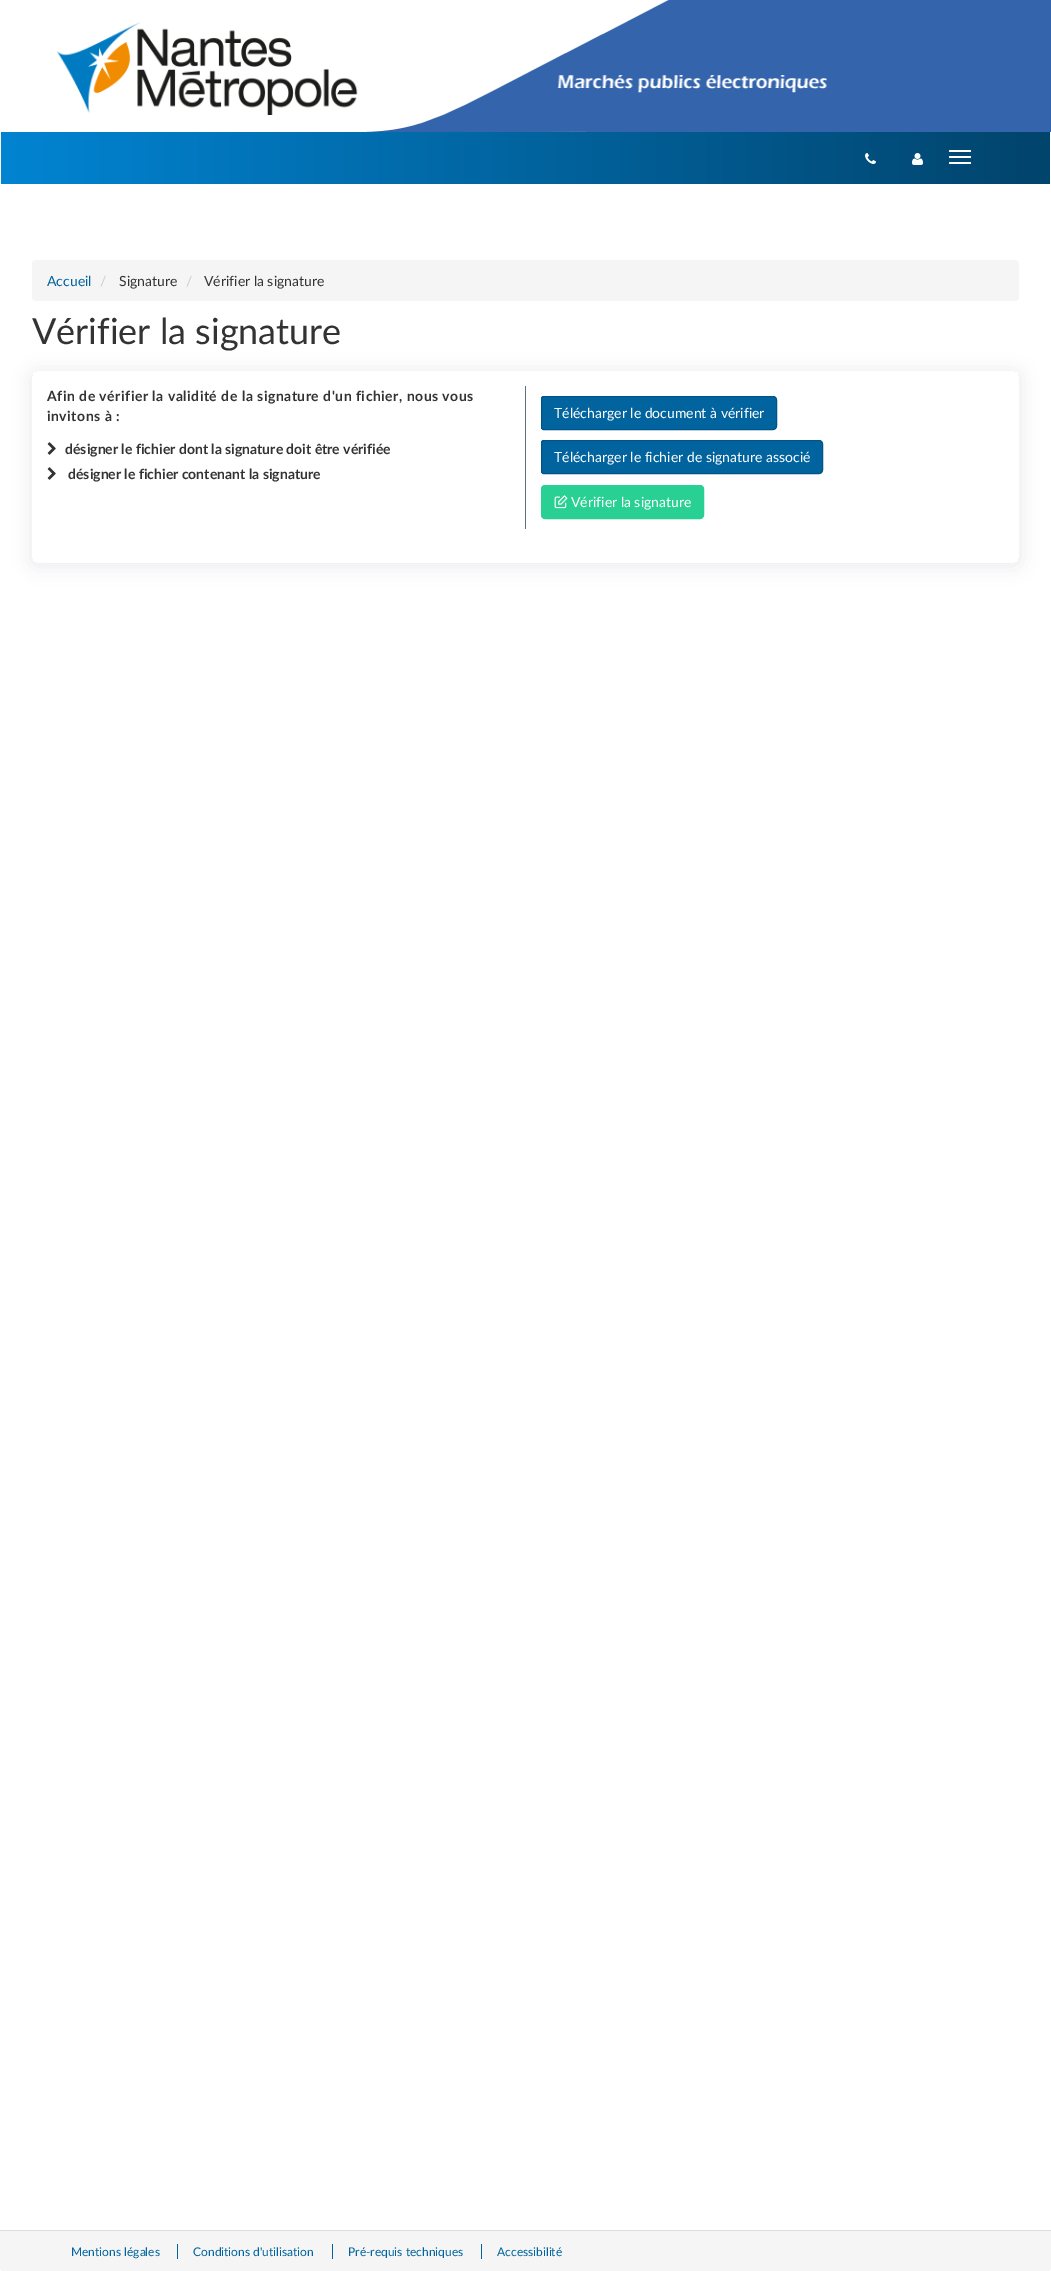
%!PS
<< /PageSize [1051 2271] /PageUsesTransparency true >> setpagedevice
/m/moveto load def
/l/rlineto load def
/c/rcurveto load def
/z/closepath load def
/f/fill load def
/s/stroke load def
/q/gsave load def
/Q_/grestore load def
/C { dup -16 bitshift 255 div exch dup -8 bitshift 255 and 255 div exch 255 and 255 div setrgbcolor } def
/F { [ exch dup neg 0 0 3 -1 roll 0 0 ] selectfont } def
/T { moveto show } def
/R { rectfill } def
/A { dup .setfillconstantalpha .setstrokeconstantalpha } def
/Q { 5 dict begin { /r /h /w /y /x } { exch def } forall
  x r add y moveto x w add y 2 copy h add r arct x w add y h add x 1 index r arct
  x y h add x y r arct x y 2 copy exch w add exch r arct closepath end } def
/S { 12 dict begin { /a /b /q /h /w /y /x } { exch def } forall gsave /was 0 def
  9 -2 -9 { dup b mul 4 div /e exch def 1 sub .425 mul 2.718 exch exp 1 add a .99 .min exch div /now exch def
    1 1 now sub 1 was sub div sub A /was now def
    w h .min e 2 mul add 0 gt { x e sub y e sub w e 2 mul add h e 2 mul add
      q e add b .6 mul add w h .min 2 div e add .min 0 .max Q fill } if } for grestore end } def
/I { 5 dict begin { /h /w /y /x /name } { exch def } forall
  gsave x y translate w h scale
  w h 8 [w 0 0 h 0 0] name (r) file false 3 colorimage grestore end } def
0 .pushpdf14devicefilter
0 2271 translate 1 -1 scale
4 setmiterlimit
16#FFFFFF C
0 0 1051 2271 R
(1.rgb) 827 0 224 132 I
(2.rgb) 366 0 461 132 I
(3.rgb) 57 22 301 93 I
q 1 132 m 1049 0 l 0 52 l -1049 0 l z clip newpath
<< /ShadingType 2 /ColorSpace /DeviceRGB /Coords [1 158 1050 158] /Extend [true true] /Function << /FunctionType 2 /Domain [0 1] /C0 [.004 .518 .824] /C1 [.004 .267 .424] /N 1 >> >> shfill Q_
(4.rgb) 865 153 11 11 I
(5.rgb) 912 153 11 12 I
949 150 22 2 1 Q f
949 156 22 2 1 Q f
949 162 22 2 1 Q f
16#F5F5F5 C
32 260 987 41 4 Q f
/Lato-Regular 14 F
16#01649F C
(Accueil) 47 286 T
16#CCCCCC C
(/) 100 286 T
16#333333 C
(Signature) 119 286 T
16#CCCCCC C
(/) 186 286 T
16#333333 C
(Vérifier la signature) 204 286 T
/Lato-Regular 36 F
(Vérifier la signature) 32 344 T
q
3 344 m 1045 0 l 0 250 l -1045 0 l z 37 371 m 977 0 l 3 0 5 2 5 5 c 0 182 l 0 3 -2 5 -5 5 c -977 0 l -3 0 -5 -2 -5 -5 c 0 -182 l 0 -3 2 -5 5 -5 c z eoclip newpath
16#313548 C
31 372 989 194 6 9 .1 S
Q_
16#626E82 C
525 386 1 143 R
/Lato-Bold 14 F
16#333333 C
47 401 m .5 0 (Afin de vérifier la validité de la signature d'un fichier, nous vous) ashow
47 421 m .5 0 (invitons à :) ashow
(6.rgb) 47 442 9 13 I
(désigner le fichier dont la signature doit être vérifiée) 65 454 T
(6.rgb) 47 467 9 13 I
(désigner le fichier contenant la signature) 68 479 T
16#01649F C
543.5 396.5 m 229.5 0 l 2 0 3.5 1.5 3.5 3.5 c 0 26 l 0 2 -1.5 3.5 -3.5 3.5 c -229.5 0 l -1 0 -2 -1 -2 -2 c 0 -29 l 0 -1 1 -2 2 -2 c z q f Q_
16#015486 C
s
/Lato-Regular 14 F
16#FFFFFF C
(Télécharger le document à vérifier) 554 418 T
16#01649F C
543.5 440.5 m 275.5 0 l 2 0 3.5 1.5 3.5 3.5 c 0 26 l 0 2 -1.5 3.5 -3.5 3.5 c -275.5 0 l -1 0 -2 -1 -2 -2 c 0 -29 l 0 -1 1 -2 2 -2 c z q f Q_
16#015486 C
s
16#FFFFFF C
(Télécharger le fichier de signature associé) 554 462 T
16#28D094 C
541.5 485.5 162 33 3.5 Q q f Q_
s
(7.rgb) 554 495 14 14 I
16#FFFFFF C
(Vérifier la signature) 571 507 T
16#F5F5F5 C
0 2230 m 1051 0 l 0 38 l 0 1.5 -1.5 3 -3 3 c -1045 0 l -1.5 0 -3 -1.5 -3 -3 c z f
16#DDDDDD C
0 2230 1051 1 R
/Lato-Regular 12 F
16#01649F C
(Mentions légales) 71 2256 T
(Conditions d'utilisation) 193 2256 T
177 2244 1 15 R
(Pré-requis techniques) 348 2256 T
332 2244 1 15 R
(Accessibilité) 497 2256 T
481 2244 1 15 R
.poppdf14devicefilter showpage
